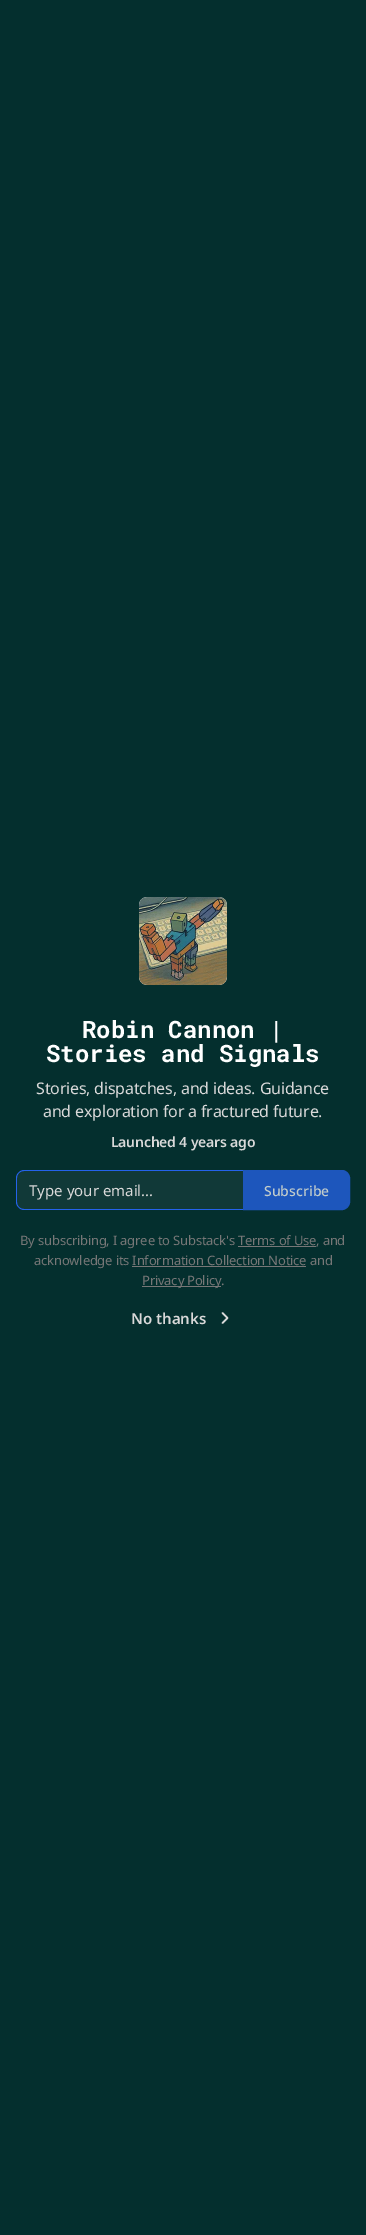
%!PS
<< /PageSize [366 2235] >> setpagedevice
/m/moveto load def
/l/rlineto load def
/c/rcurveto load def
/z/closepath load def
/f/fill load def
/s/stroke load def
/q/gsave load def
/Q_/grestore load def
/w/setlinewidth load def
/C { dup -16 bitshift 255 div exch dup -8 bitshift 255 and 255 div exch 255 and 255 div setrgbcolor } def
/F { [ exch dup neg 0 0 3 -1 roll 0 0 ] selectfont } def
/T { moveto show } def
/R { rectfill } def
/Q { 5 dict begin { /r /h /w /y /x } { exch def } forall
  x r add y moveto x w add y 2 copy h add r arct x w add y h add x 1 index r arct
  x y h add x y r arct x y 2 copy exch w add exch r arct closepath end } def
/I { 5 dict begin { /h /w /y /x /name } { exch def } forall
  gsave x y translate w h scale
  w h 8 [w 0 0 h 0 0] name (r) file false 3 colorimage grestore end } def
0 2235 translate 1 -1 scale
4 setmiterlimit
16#042F2E C
0 0 366 2235 R
16#FFFFFF C
139 897 88 88 8 Q f
(1.rgb) 139 897 88 88 I
/RobotoMono-Bold 24 F
(Robin Cannon |) 82 1038 T
(Stories and Signals) 46 1062 T
/NotoSans-Regular 16 F
16#D9D9D9 C
36 1094 m -.2 0 (Stories, dispatches, and ideas. Guidance) ashow
43 1117 m -.2 0 (and exploration for a fractured future.) ashow
/NotoSans-SemiBold 14 F
111 1147 m -.2 0 (Launched 4 years ago) ashow
16#113938 C
24 1171 m 219 0 l 0 38 l -219 0 l -4 0 -7 -3 -7 -7 c 0 -24 l 0 -4 3 -7 7 -7 c z f
16#2563EB C
24 1170 m 219 0 l 0 40 l -219 0 l -4 0 -8 -4 -8 -8 c 0 -24 l 0 -4 4 -8 8 -8 c z 24 1171 m 219 0 l 0 38 l -219 0 l -4 0 -7 -3 -7 -7 c 0 -24 l 0 -4 3 -7 7 -7 c z eofill
/NotoSans-Regular 15 F
16#D9D9D9 C
(Type your email...) 29 1196 T
16#1D56BC C
243.5 1170.5 m 98.5 0 l 4 0 7.5 3.5 7.5 7.5 c 0 24 l 0 4 -3.5 7.5 -7.5 7.5 c -98.5 0 l z q f Q_
s
/NotoSans-Medium 14 F
16#C0CBCB C
(Subscribe) 264 1196 T
/NotoSans-Regular 13 F
16#777777 C
20 1245 m -.2 0 (By subscribing, I agree to Substack's Terms of Use, and) ashow
238 1246 78 1 R
34 1265 m -.2 0 (acknowledge its Information Collection Notice and) ashow
132 1266 174 1 R
142 1286 79 1 R
142 1285 m -.2 0 (Privacy Policy.) ashow
/NotoSans-SemiBold 15 F
16#D9D9D9 C
(No thanks) 131 1324 T
1.7 w
1 setlinecap
1 setlinejoin
222.5 1323 m 5 -5 l -5 -5 l s
showpage
